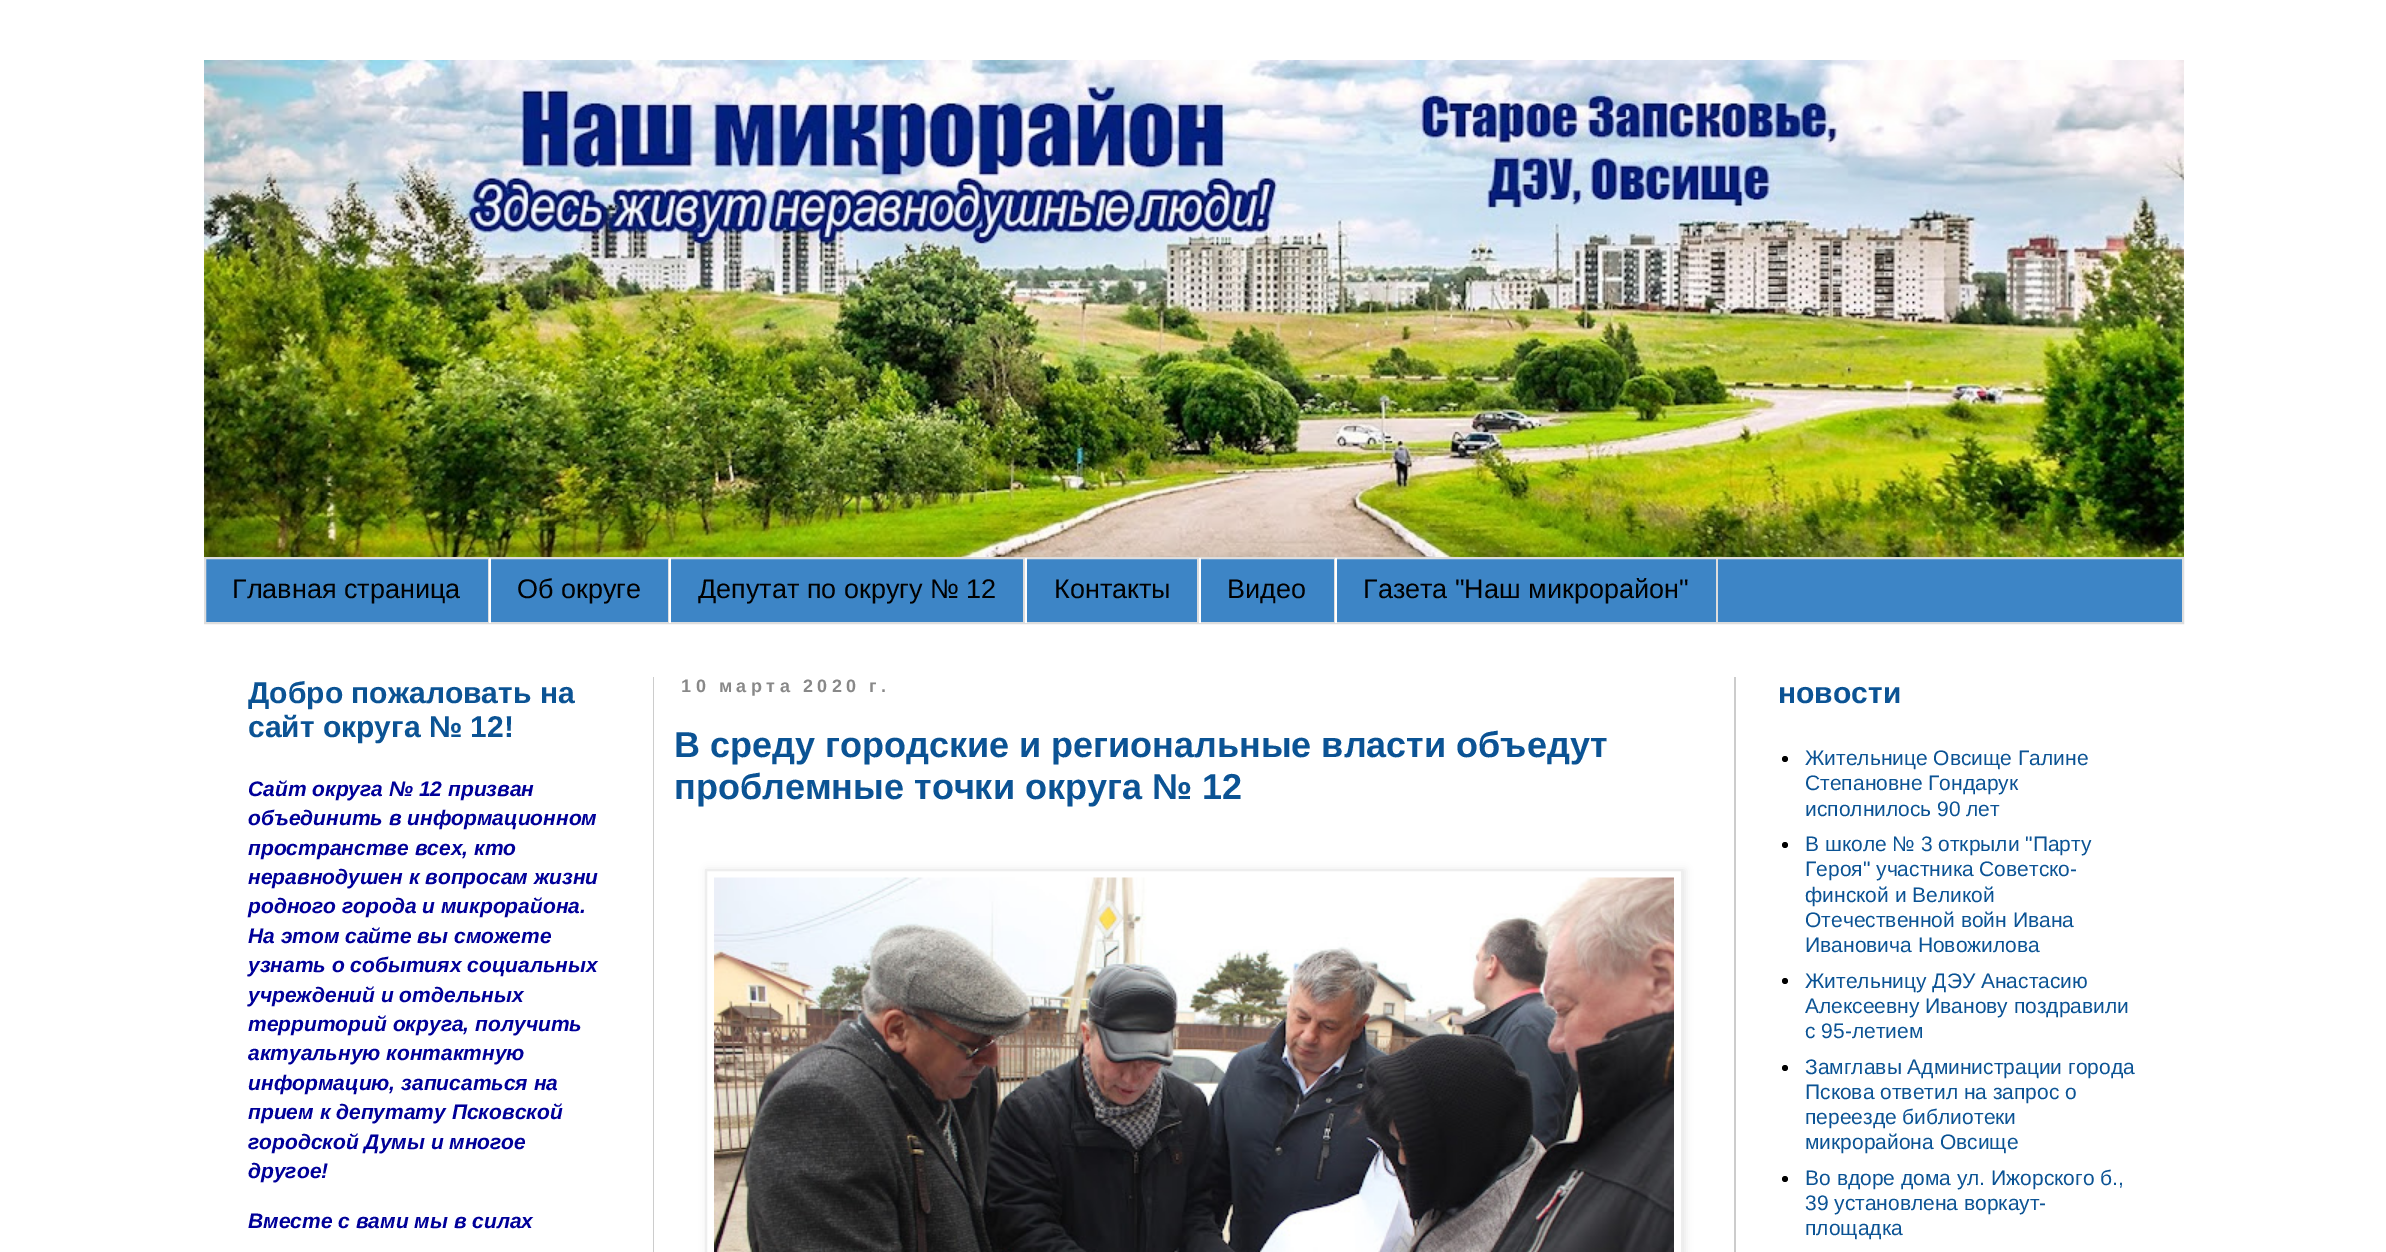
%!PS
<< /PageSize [2386 1252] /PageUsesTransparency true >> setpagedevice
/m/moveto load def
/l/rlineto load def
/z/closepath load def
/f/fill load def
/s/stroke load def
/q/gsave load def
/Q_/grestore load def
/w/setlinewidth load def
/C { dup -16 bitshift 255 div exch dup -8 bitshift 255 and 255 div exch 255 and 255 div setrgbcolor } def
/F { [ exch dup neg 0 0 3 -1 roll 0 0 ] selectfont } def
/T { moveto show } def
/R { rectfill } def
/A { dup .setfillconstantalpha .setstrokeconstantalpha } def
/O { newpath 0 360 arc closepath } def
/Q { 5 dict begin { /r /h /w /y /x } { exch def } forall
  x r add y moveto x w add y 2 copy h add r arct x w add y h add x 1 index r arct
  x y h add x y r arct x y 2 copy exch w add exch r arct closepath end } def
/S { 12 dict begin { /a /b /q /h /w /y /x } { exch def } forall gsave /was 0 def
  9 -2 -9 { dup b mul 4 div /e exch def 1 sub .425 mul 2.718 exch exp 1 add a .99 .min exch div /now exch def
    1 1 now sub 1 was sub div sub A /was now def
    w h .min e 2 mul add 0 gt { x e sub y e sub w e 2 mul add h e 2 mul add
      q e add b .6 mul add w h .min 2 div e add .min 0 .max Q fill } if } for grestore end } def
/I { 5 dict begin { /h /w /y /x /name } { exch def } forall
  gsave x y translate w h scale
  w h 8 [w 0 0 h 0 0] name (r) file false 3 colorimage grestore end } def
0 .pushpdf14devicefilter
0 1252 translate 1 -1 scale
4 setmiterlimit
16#FFFFFF C
0 0 2386 1252 R
(1.rgb) 204 60 1980 497 I
16#3D85C6 C
205 558 m 1978 0 l 0 65 l -1978 0 l z q f Q_
16#DDDDDD C
2 w
s
488 558 1 65 R
/LiberationSans-Regular 27 F
16#000000 C
(Главная страница) 232 598 T
16#DDDDDD C
668 558 1 65 R
16#FFFFFF C
489 558 2 65 R
16#000000 C
(Об округе) 517 598 T
16#DDDDDD C
1023 558 2 65 R
16#FFFFFF C
669 558 2 65 R
16#000000 C
(Депутат по округу № 12) 698 598 T
16#DDDDDD C
1197 558 2 65 R
16#FFFFFF C
1025 558 2 65 R
16#000000 C
(Контакты) 1054 598 T
16#DDDDDD C
1334 558 1 65 R
16#FFFFFF C
1199 558 2 65 R
16#000000 C
(Видео) 1227 598 T
16#DDDDDD C
1716 558 2 65 R
16#FFFFFF C
1335 558 2 65 R
16#000000 C
(Газета "Наш микрорайон") 1363 598 T
16#CCCCCC C
653 677 1 575 R
1734 677 2 575 R
/LiberationSans-Bold 30 F
16#0B5394 C
(Добро пожаловать на) 248 703 T
(сайт округа № 12!) 248 737 T
/LiberationSans-BoldItalic 21 F
16#000099 C
(Сайт округа № 12 призван) 248 796 T
(объединить в информационном) 248 825 T
(пространстве всех, кто) 248 855 T
(неравнодушен к вопросам жизни) 248 884 T
(родного города и микрорайона.) 248 913 T
(На этом сайте вы сможете) 248 943 T
(узнать о событиях социальных) 248 972 T
(учреждений и отдельных) 248 1002 T
(территорий округа, получить) 248 1031 T
(актуальную контактную) 248 1060 T
(информацию, записаться на) 248 1090 T
(прием к депутату Псковской) 248 1119 T
(городской Думы и многое) 248 1149 T
(другое!) 248 1178 T
(Вместе с вами мы в силах) 248 1228 T
/LiberationSans-Bold 18 F
16#888888 C
681 692 m -1 0 32 4.5 0 (10 марта 2020 г.) awidthshow
/LiberationSans-Bold 36 F
16#0B5394 C
(В среду городские и региональные власти объедут) 674 757 T
(проблемные точки округа № 12) 674 799 T
q
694 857 m 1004 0 l 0 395 l -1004 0 l z 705 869 m 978 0 l 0 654 l -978 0 l z eoclip newpath
16#000000 C
707 870 978 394 0 4 .1 S
Q_
16#EEEEEE C
706 870 976 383 rectstroke
(2.rgb) 714 877 960 375 I
/LiberationSans-Bold 30 F
16#0B5394 C
(новости) 1778 703 T
16#000000 C
1785 759 3 O f
/LiberationSans-Regular 21 F
16#0B5394 C
(Жительнице Овсище Галине) 1805 765 T
(Степановне Гондарук) 1805 790 T
(исполнилось 90 лет) 1805 816 T
16#000000 C
1785 845 3 O f
16#0B5394 C
(В школе № 3 открыли "Парту) 1805 851 T
(Героя" участника Советско-) 1805 876 T
(финской и Великой) 1805 902 T
(Отечественной войн Ивана) 1805 927 T
(Ивановича Новожилова) 1805 952 T
16#000000 C
1785 981 3 O f
16#0B5394 C
(Жительницу ДЭУ Анастасию) 1805 988 T
(Алексеевну Иванову поздравили) 1805 1013 T
(с 95-летием) 1805 1038 T
16#000000 C
1785 1068 3 O f
16#0B5394 C
(Замглавы Администрации города) 1805 1074 T
(Пскова ответил на запрос о) 1805 1099 T
(переезде библиотеки) 1805 1124 T
(микрорайона Овсище) 1805 1149 T
16#000000 C
1785 1179 3 O f
16#0B5394 C
(Во вдоре дома ул. Ижорского б.,) 1805 1185 T
(39 установлена воркаут-) 1805 1210 T
(площадка) 1805 1235 T
.poppdf14devicefilter showpage
